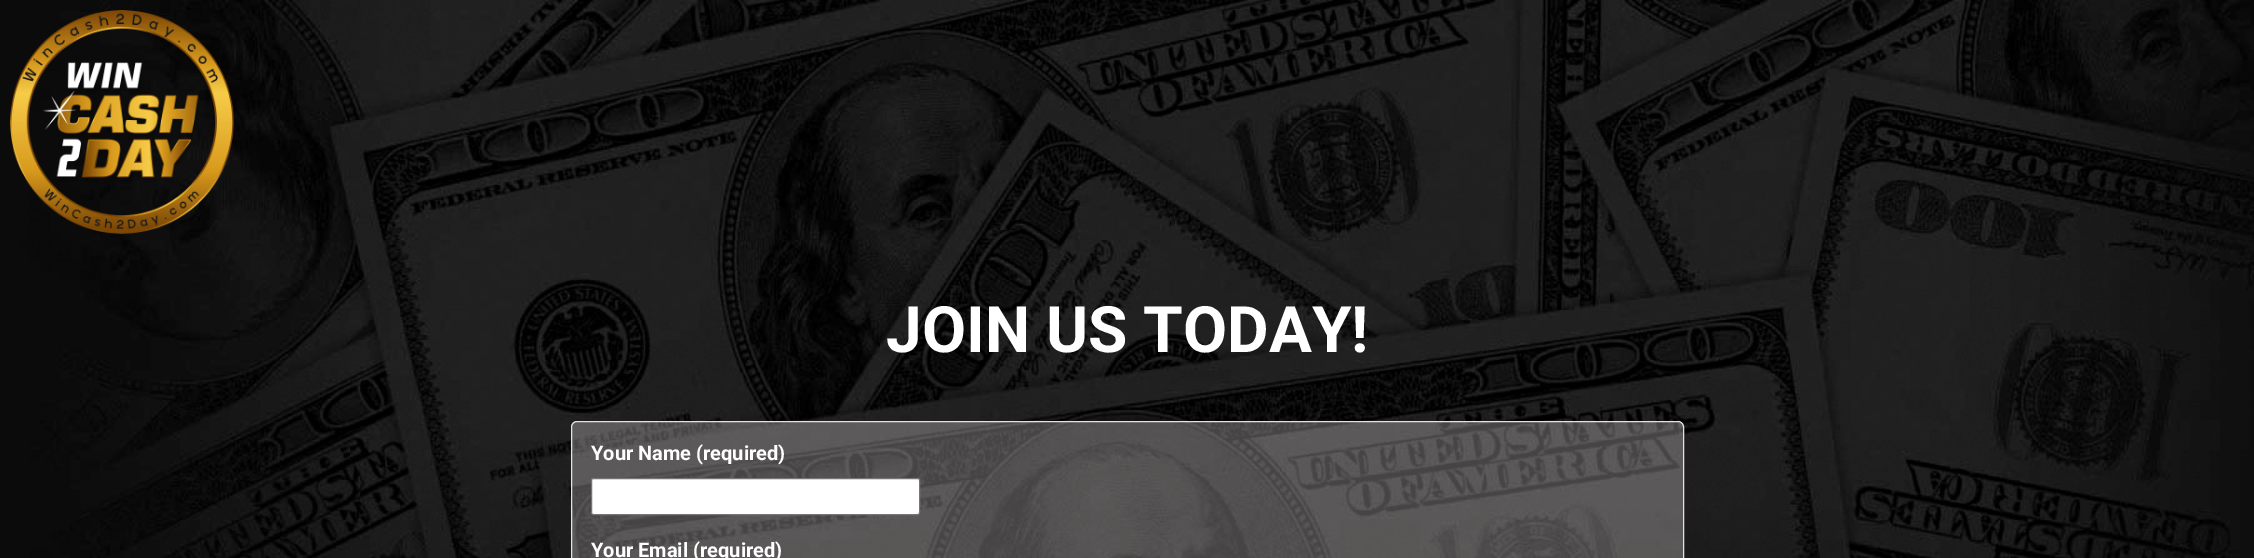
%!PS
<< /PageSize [2254 558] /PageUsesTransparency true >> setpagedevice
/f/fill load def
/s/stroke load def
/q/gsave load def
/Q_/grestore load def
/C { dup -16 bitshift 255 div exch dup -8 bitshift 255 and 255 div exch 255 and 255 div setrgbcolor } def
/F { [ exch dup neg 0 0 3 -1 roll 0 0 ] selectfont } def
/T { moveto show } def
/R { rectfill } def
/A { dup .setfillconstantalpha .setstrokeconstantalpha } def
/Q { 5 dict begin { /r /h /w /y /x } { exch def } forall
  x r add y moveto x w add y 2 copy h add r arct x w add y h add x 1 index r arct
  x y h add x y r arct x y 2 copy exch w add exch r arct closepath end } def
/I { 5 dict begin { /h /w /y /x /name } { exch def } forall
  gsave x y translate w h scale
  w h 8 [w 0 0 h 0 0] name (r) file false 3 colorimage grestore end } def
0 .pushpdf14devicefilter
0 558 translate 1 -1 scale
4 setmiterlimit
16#FFFFFF C
0 0 2254 558 R
(1.rgb) 0 0 2254 558 I
(2.rgb) 10 10 224 224 I
/Roboto-Bold 64 F
(JOIN US TODAY!) 886 352 T
0.3 A
16#E7E0E0 C
571.5 421.5 1112 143 5.5 Q f
1 A
571.5 421.5 1112 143 5.5 Q s
/Roboto-Bold 20 F
16#FFFFFF C
(Your Name \(required\)) 591 460 T
591.5 478.5 328 36 2 Q q f Q_
16#767676 C
s
16#FFFFFF C
(Your Email \(required\)) 591 557 T
.poppdf14devicefilter showpage
